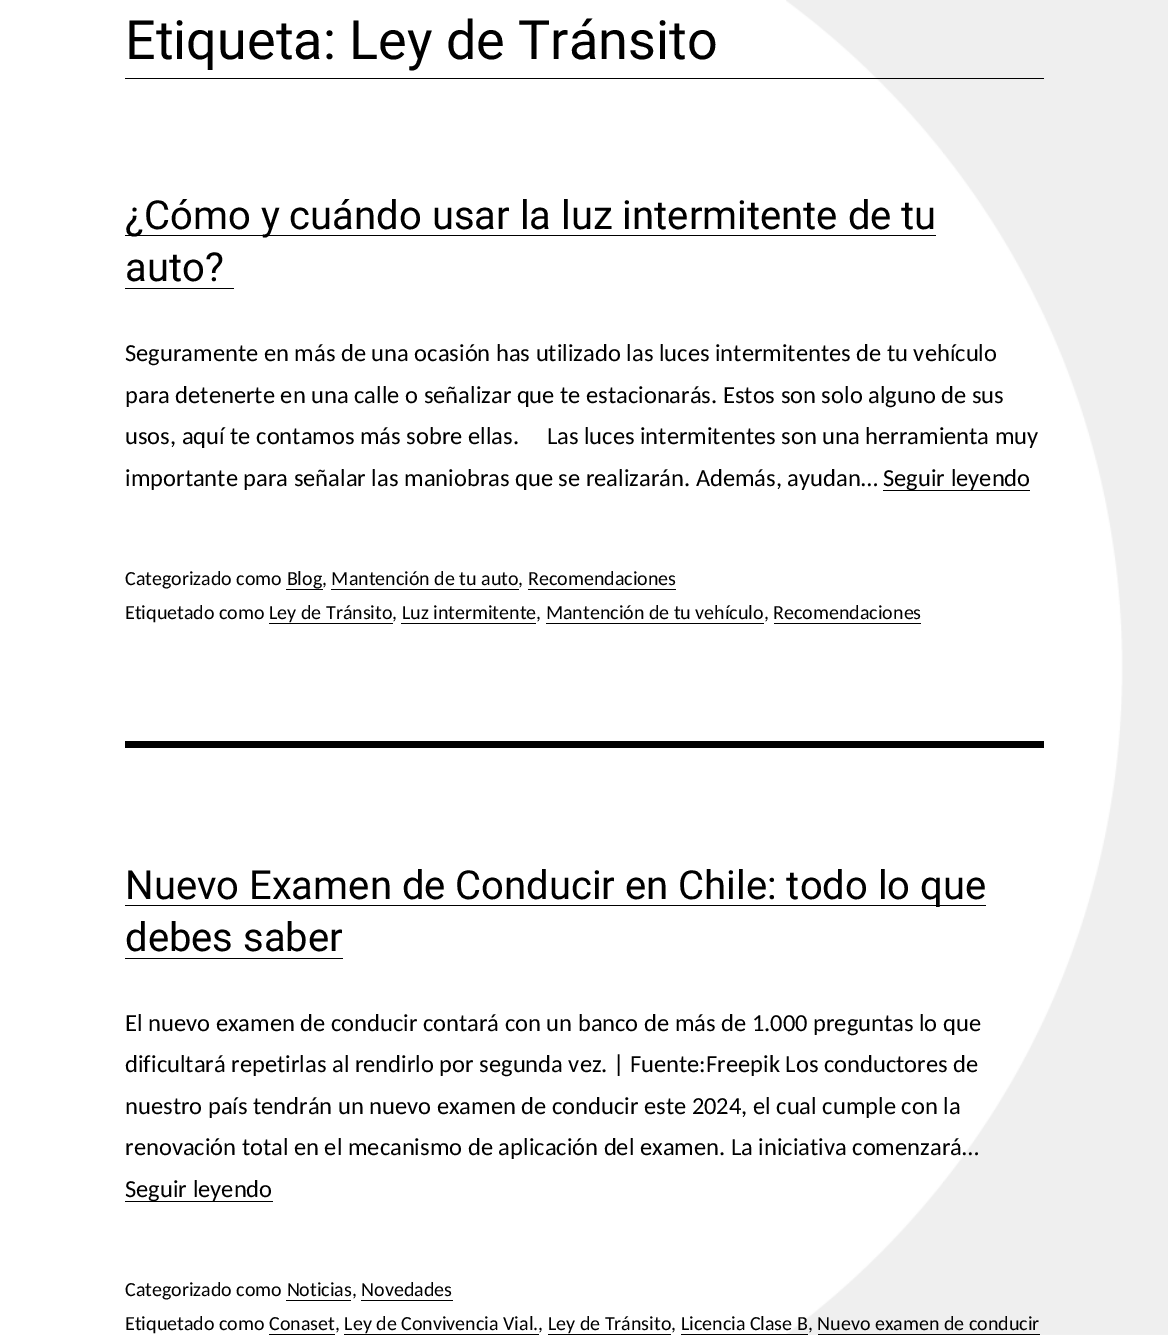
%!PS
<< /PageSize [1168 1335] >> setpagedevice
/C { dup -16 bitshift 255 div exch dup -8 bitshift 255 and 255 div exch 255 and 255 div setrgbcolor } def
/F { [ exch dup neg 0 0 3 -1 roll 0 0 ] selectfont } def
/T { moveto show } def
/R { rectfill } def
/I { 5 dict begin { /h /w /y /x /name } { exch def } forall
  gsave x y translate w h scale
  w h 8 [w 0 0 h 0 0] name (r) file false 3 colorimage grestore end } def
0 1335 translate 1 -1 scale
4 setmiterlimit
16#FFFFFF C
0 0 1168 1335 R
(1.rgb) 786 0 382 1335 I
16#000000 C
125 78 919 1 R
/Roboto-Regular 54 F
(Etiqueta: Ley de Tránsito) 125 59 T
125 235 811 1 R
/Roboto-Regular 40 F
(¿Cómo y cuándo usar la luz intermitente de tu) 125 229 T
(auto?) 125 281 T
125 288 109 1 R
/Carlito-Regular 24.5 F
(Seguramente en más de una ocasión has utilizado las luces intermitentes de tu vehículo) 125 361 T
(para detenerte en una calle o señalizar que te estacionarás. Estos son solo alguno de sus) 125 403 T
(usos, aquí te contamos más sobre ellas.     Las luces intermitentes son una herramienta muy) 125 444 T
(importante para señalar las maniobras que se realizarán. Además, ayudan…) 125 486 T
883 490 147 1 R
(Seguir leyendo) 883 486 T
125 741 919 7 R
/Carlito-Regular 20 F
(Categorizado como Blog, Mantención de tu auto, Recomendaciones) 125 585 T
286 589 37 1 R
331 589 188 1 R
528 589 148 1 R
(Etiquetado como Ley de Tránsito, Luz intermitente, Mantención de tu vehículo, Recomendaciones) 125 619 T
269 623 124 1 R
401 623 135 1 R
546 623 218 1 R
774 623 147 1 R
125 905 861 1 R
/Roboto-Regular 40 F
(Nuevo Examen de Conducir en Chile: todo lo que) 125 899 T
(debes saber) 125 951 T
125 958 218 1 R
/Carlito-Regular 24.5 F
(El nuevo examen de conducir contará con un banco de más de 1.000 preguntas lo que) 125 1031 T
(dificultará repetirlas al rendirlo por segunda vez. | Fuente:Freepik Los conductores de) 125 1072 T
(nuestro país tendrán un nuevo examen de conducir este 2024, el cual cumple con la) 125 1114 T
(renovación total en el mecanismo de aplicación del examen. La iniciativa comenzará…) 125 1155 T
125 1201 148 1 R
(Seguir leyendo) 125 1197 T
/Carlito-Regular 20 F
(Categorizado como Noticias, Novedades) 125 1296 T
286 1300 65 1 R
361 1300 92 1 R
(Etiquetado como Conaset, Ley de Convivencia Vial., Ley de Tránsito, Licencia Clase B, Nuevo examen de conducir) 125 1330 T
269 1334 66 1 R
344 1334 195 1 R
548 1334 123 1 R
681 1334 127 1 R
818 1334 222 1 R
showpage
